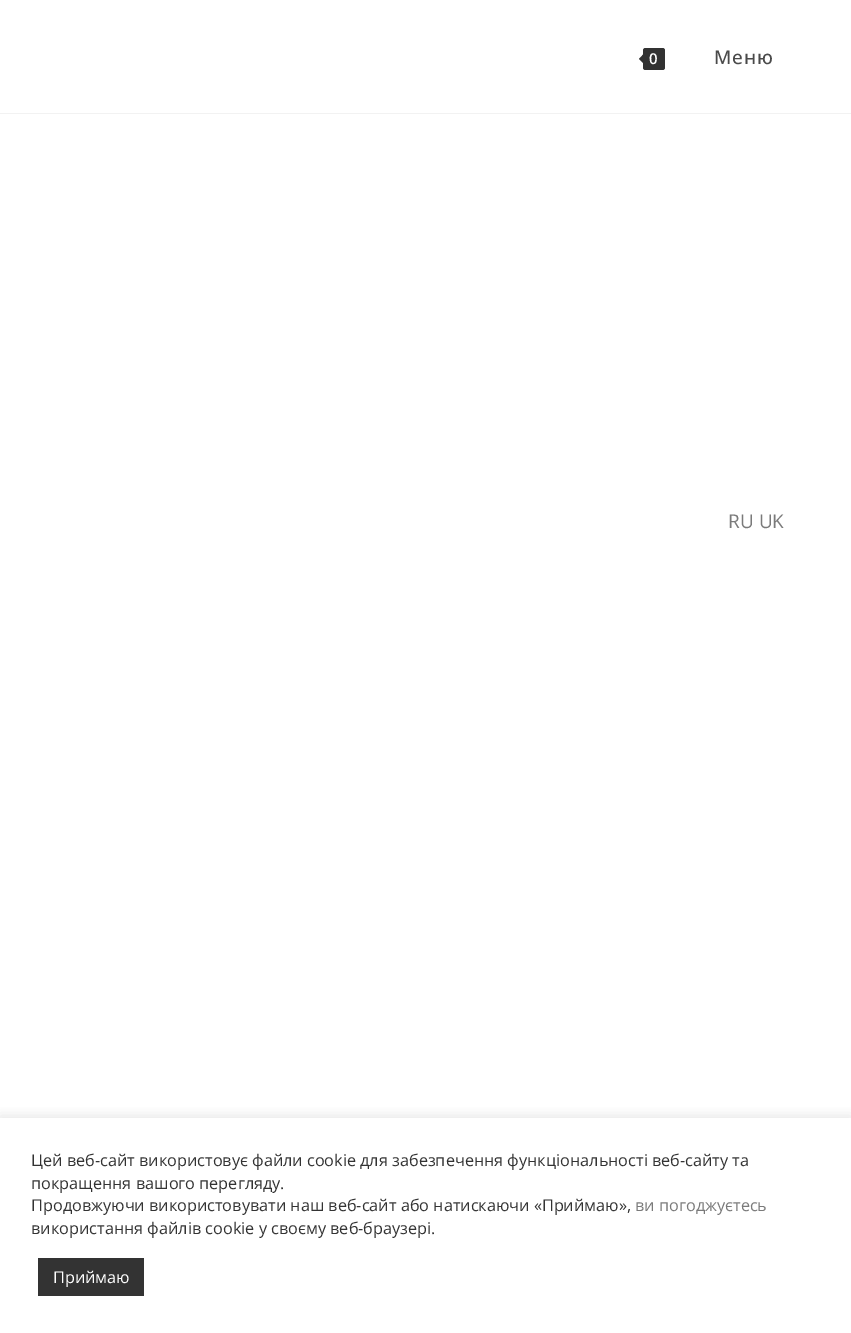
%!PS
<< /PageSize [851 1333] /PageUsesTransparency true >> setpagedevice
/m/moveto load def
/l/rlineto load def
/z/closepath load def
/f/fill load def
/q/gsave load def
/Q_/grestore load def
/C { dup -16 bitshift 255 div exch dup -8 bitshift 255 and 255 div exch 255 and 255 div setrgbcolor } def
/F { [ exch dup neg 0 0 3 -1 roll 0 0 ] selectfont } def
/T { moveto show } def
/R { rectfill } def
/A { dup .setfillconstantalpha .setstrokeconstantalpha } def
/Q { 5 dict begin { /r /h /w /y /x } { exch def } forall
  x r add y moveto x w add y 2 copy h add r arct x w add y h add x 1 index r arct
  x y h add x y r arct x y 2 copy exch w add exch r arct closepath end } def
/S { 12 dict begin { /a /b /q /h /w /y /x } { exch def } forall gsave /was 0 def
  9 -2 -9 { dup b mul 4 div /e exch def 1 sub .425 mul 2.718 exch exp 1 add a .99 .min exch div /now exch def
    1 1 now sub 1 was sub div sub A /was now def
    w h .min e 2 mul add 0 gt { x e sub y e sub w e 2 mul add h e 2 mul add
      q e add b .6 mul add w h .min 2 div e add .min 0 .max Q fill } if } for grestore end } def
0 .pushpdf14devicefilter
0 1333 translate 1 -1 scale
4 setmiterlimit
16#FFFFFF C
0 0 851 1333 R
16#F2F2F2 C
0 113 851 1 R
16#323232 C
643 48 22 22 2.5 Q f
645 52.5 m 0 12.5 l -6 -6 l z f
/OpenSans-SemiBold 15 F
16#FFFFFF C
649 64 m 1 0 (0) ashow
/OpenSans-Medium 19 F
16#4A4A4A C
714 64 m 1 0 (Меню) ashow
/OpenSans-Regular 19 F
16#7A7A7A C
(RU UK) 728 528 T
q
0 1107 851 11 rectclip
16#ACABAB C
0 1116 851 217 0 6 .3 S
Q_
/OpenSans-Regular 16.25 F
16#333333 C
(Цей веб-сайт використовує файли cookie для забезпечення функціональності веб-сайту та) 31 1166 T
(покращення вашого перегляду.) 31 1189 T
(Продовжуючи використовувати наш веб-сайт або натискаючи «Приймаю»,) 31 1211 T
16#7A7A7A C
(ви погоджуєтесь) 635 1211 T
16#333333 C
(використання файлів cookie у своєму веб-браузері.) 31 1234 T
38 1258 106 38 R
16#FFFFFF C
(Приймаю) 53 1283 T
.poppdf14devicefilter showpage
